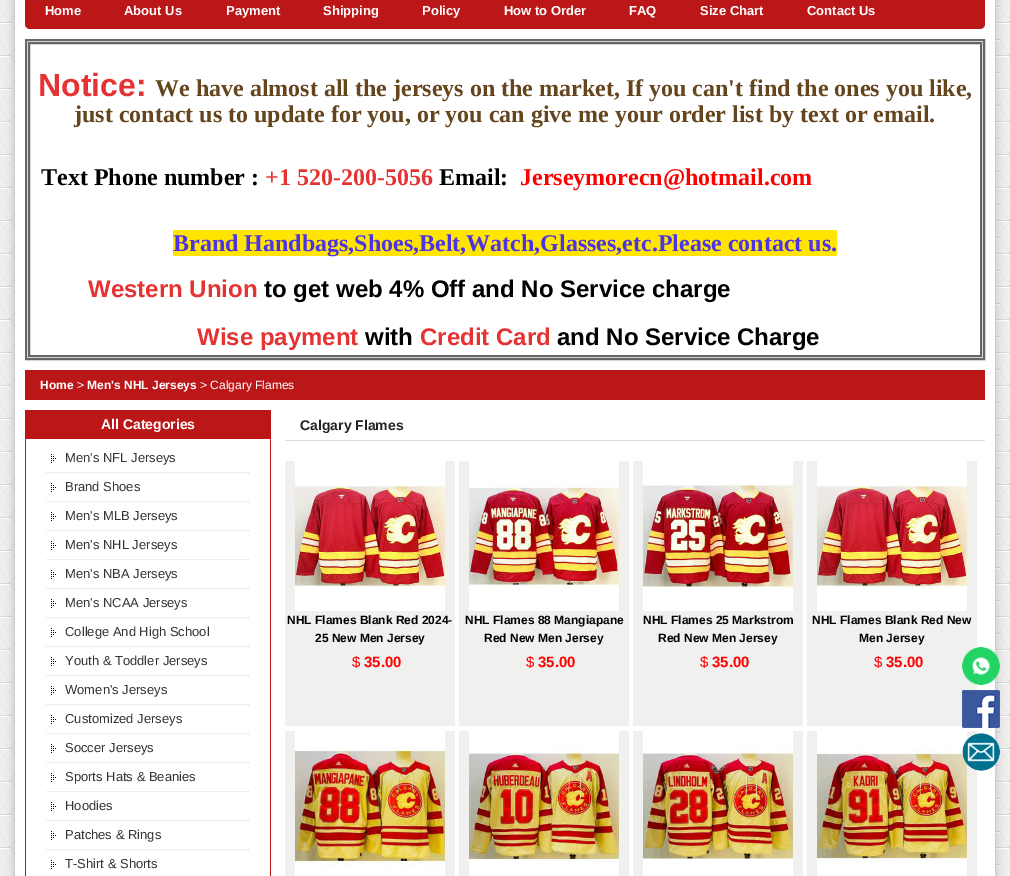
%!PS
<< /PageSize [1010 876] /PageUsesTransparency true >> setpagedevice
/m/moveto load def
/l/rlineto load def
/f/fill load def
/s/stroke load def
/w/setlinewidth load def
/C { dup -16 bitshift 255 div exch dup -8 bitshift 255 and 255 div exch 255 and 255 div setrgbcolor } def
/F { [ exch dup neg 0 0 3 -1 roll 0 0 ] selectfont } def
/T { moveto show } def
/R { rectfill } def
/A { dup .setfillconstantalpha .setstrokeconstantalpha } def
/Q { 5 dict begin { /r /h /w /y /x } { exch def } forall
  x r add y moveto x w add y 2 copy h add r arct x w add y h add x 1 index r arct
  x y h add x y r arct x y 2 copy exch w add exch r arct closepath end } def
/S { 12 dict begin { /a /b /q /h /w /y /x } { exch def } forall gsave /was 0 def
  9 -2 -9 { dup b mul 4 div /e exch def 1 sub .425 mul 2.718 exch exp 1 add a .99 .min exch div /now exch def
    1 1 now sub 1 was sub div sub A /was now def
    w h .min e 2 mul add 0 gt { x e sub y e sub w e 2 mul add h e 2 mul add
      q e add b .6 mul add w h .min 2 div e add .min 0 .max Q fill } if } for grestore end } def
/I { 5 dict begin { /h /w /y /x /name } { exch def } forall
  gsave x y translate w h scale
  w h 8 [w 0 0 h 0 0] name (r) file false 3 colorimage grestore end } def
0 .pushpdf14devicefilter
0 876 translate 1 -1 scale
4 setmiterlimit
16#FFFFFF C
0 0 1010 876 R
(1.rgb) 0 0 1010 876 I
16#000000 C
15 -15 980 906 0 5 .25 S
16#FFFFFF C
15 0 980 876 R
16#BB1719 C
25 -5 960 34 5 Q f
/LiberationSans-Bold 13 F
16#FFFFFF C
(Home) 45 15 T
(About Us) 124 15 T
(Payment) 226 15 T
(Shipping) 323 15 T
(Policy) 422 15 T
(How to Order) 504 15 T
(FAQ) 629 15 T
(Size Chart) 700 15 T
(Contact Us) 807 15 T
16#666666 C
2 w
26 40 958 319 rectstroke
29 43 952 313 rectstroke
/LiberationSans-Bold 32 F
16#E53333 C
(Notice:) 38 96 T
/LiberationSerif-Bold 24 F
16#64451D C
(We have almost all the jerseys on the market, If you can't find the ones you like,) 155 96 T
(just contact us to update for you, or you can give me your order list by text or email.) 74 122 T
16#000000 C
(Text Phone number :) 41 185 T
16#E53333 C
(+1 520-200-5056) 265 185 T
16#000000 C
(Email:) 439 185 T
16#FF0000 C
(Jerseymorecn@hotmail.com) 520 185 T
16#FFE500 C
173 230 664 26 R
16#4C33E5 C
(Brand Handbags,Shoes,Belt,Watch,Glasses,etc.Please contact us.) 173 251 T
/LiberationSans-Bold 24 F
16#E53333 C
(Western Union) 88 297 T
16#000000 C
(to get web 4% Off and No Service charge) 264 297 T
16#E53333 C
(Wise payment) 197 345 T
16#000000 C
(with) 365 345 T
16#E53333 C
(Credit Card) 420 345 T
16#000000 C
(and No Service Charge) 557 345 T
16#BB1719 C
25 370 960 30 R
/LiberationSans-Bold 12 F
16#FFFFFF C
(Home) 40 389 T
/LiberationSans-Regular 12 F
(>) 77 389 T
/LiberationSans-Bold 12 F
(Men's NHL Jerseys) 87 389 T
/LiberationSans-Regular 12 F
(> Calgary Flames) 200 389 T
16#BB1719 C
25 410 246 29 R
/LiberationSans-Bold 14 F
16#FFFFFF C
(All Categories) 101 429 T
16#BB1719 C
270 438 1 438 R
25 438 1 438 R
(2.rgb) 51 454 5 9 I
16#DDDDDD C
1 w
[1 1] 0 setdash
46 472.5 m 204 0 l s
/LiberationSans-Regular 13 F
16#333333 C
(Men's NFL Jerseys) 65 462 T
(2.rgb) 51 483 5 9 I
16#DDDDDD C
46 501.5 m 204 0 l s
16#333333 C
(Brand Shoes) 65 491 T
(2.rgb) 51 512 5 9 I
16#DDDDDD C
46 530.5 m 204 0 l s
16#333333 C
(Men's MLB Jerseys) 65 520 T
(2.rgb) 51 541 5 9 I
16#DDDDDD C
46 559.5 m 204 0 l s
16#333333 C
(Men's NHL Jerseys) 65 549 T
(2.rgb) 51 570 5 9 I
16#DDDDDD C
46 588.5 m 204 0 l s
16#333333 C
(Men's NBA Jerseys) 65 578 T
(2.rgb) 51 599 5 9 I
16#DDDDDD C
46 617.5 m 204 0 l s
16#333333 C
(Men's NCAA Jerseys) 65 607 T
(2.rgb) 51 628 5 9 I
16#DDDDDD C
46 646.5 m 204 0 l s
16#333333 C
(College And High School) 65 636 T
(2.rgb) 51 657 5 9 I
16#DDDDDD C
46 675.5 m 204 0 l s
16#333333 C
(Youth & Toddler Jerseys) 65 665 T
(2.rgb) 51 686 5 9 I
16#DDDDDD C
46 704.5 m 204 0 l s
16#333333 C
(Women's Jerseys) 65 694 T
(2.rgb) 51 715 5 9 I
16#DDDDDD C
46 733.5 m 204 0 l s
16#333333 C
(Customized Jerseys) 65 723 T
(2.rgb) 51 744 5 9 I
16#DDDDDD C
46 762.5 m 204 0 l s
16#333333 C
(Soccer Jerseys) 65 752 T
(2.rgb) 51 773 5 9 I
16#DDDDDD C
46 791.5 m 204 0 l s
16#333333 C
(Sports Hats & Beanies) 65 781 T
(2.rgb) 51 802 5 9 I
16#DDDDDD C
46 820.5 m 204 0 l s
16#333333 C
(Hoodies) 65 810 T
(2.rgb) 51 831 5 9 I
16#DDDDDD C
46 849.5 m 204 0 l s
16#333333 C
(Patches & Rings) 65 839 T
(2.rgb) 51 860 5 9 I
(T-Shirt & Shorts) 65 868 T
16#DDDDDD C
285 440 700 1 R
/LiberationSans-Bold 14 F
16#222222 C
(Calgary Flames) 300 430 T
16#F0F0EF C
285 461 170 265 R
(3.rgb) 295 461 150 150 I
/LiberationSans-Bold 12 F
16#000000 C
(NHL Flames Blank Red 2024-) 287 624 T
(25 New Men Jersey) 315 642 T
/LiberationSans-Regular 15 F
16#FF0000 C
($) 352 667 T
/LiberationSans-Bold 15 F
(35.00) 364 667 T
16#F0F0EF C
459 461 170 265 R
(4.rgb) 469 461 150 150 I
/LiberationSans-Bold 12 F
16#000000 C
(NHL Flames 88 Mangiapane) 465 624 T
(Red New Men Jersey) 484 642 T
/LiberationSans-Regular 15 F
16#FF0000 C
($) 526 667 T
/LiberationSans-Bold 15 F
(35.00) 538 667 T
16#F0F0EF C
633 461 170 265 R
(5.rgb) 643 461 150 150 I
/LiberationSans-Bold 12 F
16#000000 C
(NHL Flames 25 Markstrom) 643 624 T
(Red New Men Jersey) 658 642 T
/LiberationSans-Regular 15 F
16#FF0000 C
($) 700 667 T
/LiberationSans-Bold 15 F
(35.00) 712 667 T
16#F0F0EF C
807 461 170 265 R
(3.rgb) 817 461 150 150 I
/LiberationSans-Bold 12 F
16#000000 C
(NHL Flames Blank Red New) 812 624 T
(Men Jersey) 859 642 T
/LiberationSans-Regular 15 F
16#FF0000 C
($) 874 667 T
/LiberationSans-Bold 15 F
(35.00) 886 667 T
16#F0F0EF C
285 731 170 145 R
(6.rgb) 295 731 150 145 I
459 731 170 145 R
(7.rgb) 469 731 150 145 I
633 731 170 145 R
(8.rgb) 643 731 150 145 I
807 731 170 145 R
(9.rgb) 817 731 150 145 I
(10.rgb) 962 647 38 38 I
(11.rgb) 962 690 38 38 I
(12.rgb) 962 733 38 38 I
.poppdf14devicefilter showpage
